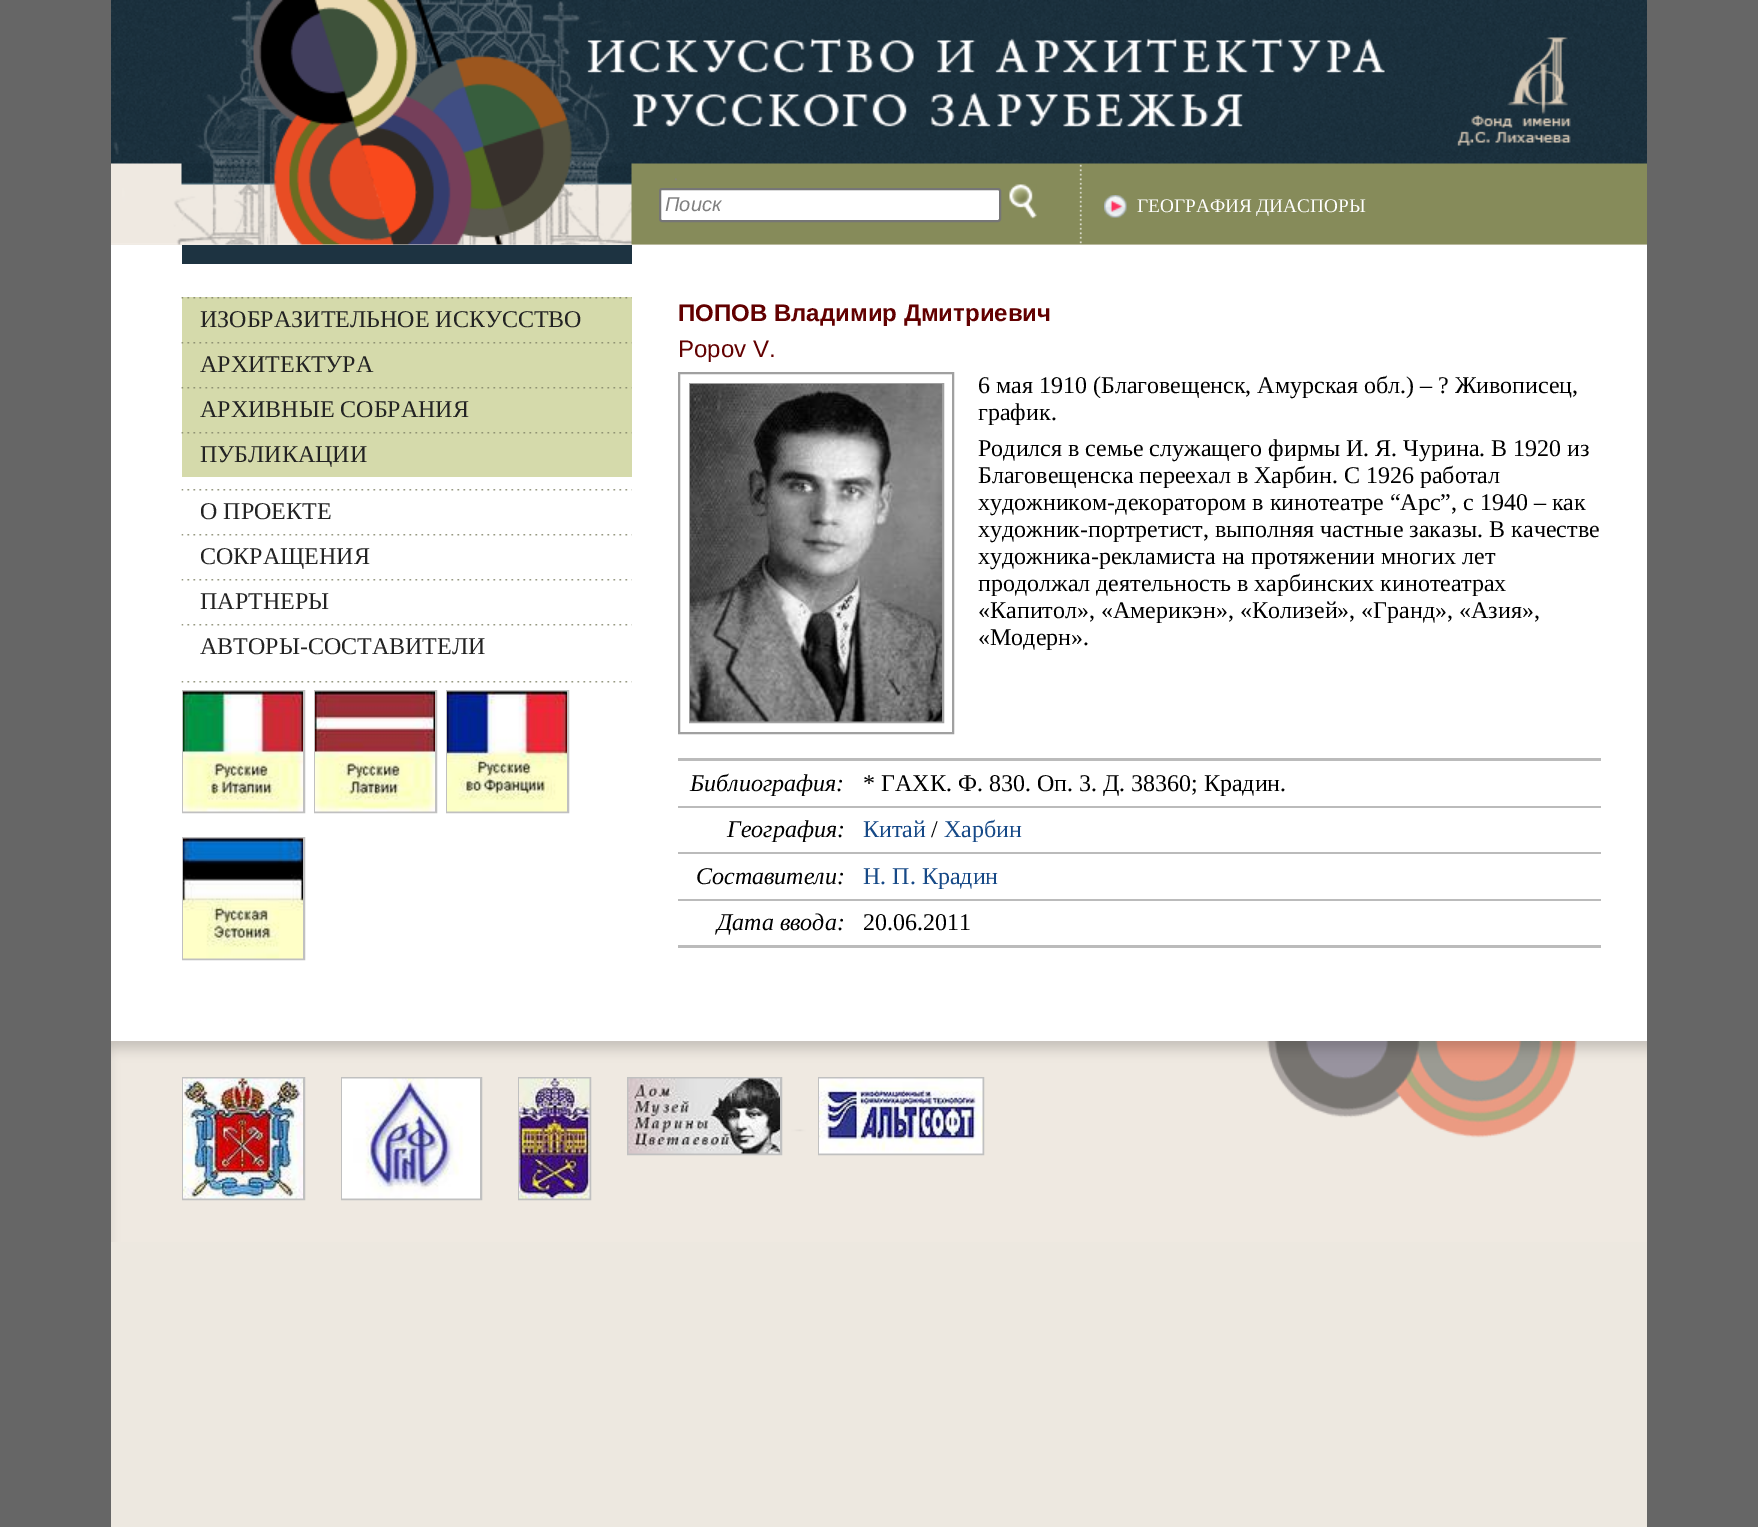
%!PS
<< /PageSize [1758 1527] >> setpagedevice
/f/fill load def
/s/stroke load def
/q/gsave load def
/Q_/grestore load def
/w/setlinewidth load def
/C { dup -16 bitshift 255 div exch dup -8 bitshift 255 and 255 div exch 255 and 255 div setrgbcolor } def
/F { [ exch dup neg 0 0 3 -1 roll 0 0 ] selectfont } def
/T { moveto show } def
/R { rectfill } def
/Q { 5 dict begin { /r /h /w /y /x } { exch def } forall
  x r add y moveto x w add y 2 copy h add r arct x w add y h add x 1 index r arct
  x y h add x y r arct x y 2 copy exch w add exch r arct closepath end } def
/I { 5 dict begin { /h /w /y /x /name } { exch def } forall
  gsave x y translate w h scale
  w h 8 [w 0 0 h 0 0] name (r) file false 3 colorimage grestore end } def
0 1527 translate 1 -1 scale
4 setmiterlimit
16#666666 C
0 0 1758 1527 R
16#EDE8E0 C
111 244 1536 1283 R
(1.rgb) 111 0 1536 245 I
16#FFFFFF C
660 189 340 32 2 Q q f Q_
16#767676 C
2 w
s
/LiberationSans-Italic 20 F
16#808080 C
(Поиск) 665 211 T
(2.rgb) 1009 184 28 35 I
(3.rgb) 1104 195 23 23 I
/LiberationSerif-Regular 19.25 F
16#FFFFFF C
(ГЕОГРАФИЯ ДИАСПОРЫ) 1137 212 T
111 245 1536 796 R
16#1D3341 C
182 245 450 19 R
16#D5DAAB C
182 297 450 180 R
(4.rgb) 181 297 451 2 I
/LiberationSerif-Regular 24 F
16#232323 C
(ИЗОБРАЗИТЕЛЬНОЕ ИСКУССТВО) 200 327 T
(4.rgb) 181 342 451 2 I
(АРХИТЕКТУРА) 200 372 T
(4.rgb) 181 387 451 2 I
(АРХИВНЫЕ СОБРАНИЯ) 200 417 T
(4.rgb) 181 432 451 2 I
(ПУБЛИКАЦИИ) 200 462 T
(5.rgb) 181 489 451 2 I
(О ПРОЕКТЕ) 200 519 T
(5.rgb) 181 534 451 2 I
(СОКРАЩЕНИЯ) 200 564 T
(6.rgb) 181 579 451 2 I
(ПАРТНЕРЫ) 200 609 T
(6.rgb) 181 624 451 2 I
(АВТОРЫ-СОСТАВИТЕЛИ) 200 654 T
(5.rgb) 181 681 451 2 I
16#C0C0C0 C
183 691 121 121 rectstroke
(7.rgb) 183 691 120 121 I
315 691 121 121 rectstroke
(8.rgb) 315 691 120 121 I
447 691 121 121 rectstroke
(9.rgb) 447 691 120 121 I
183 838 121 121 rectstroke
(10.rgb) 183 838 120 121 I
/LiberationSans-Bold 24 F
16#620000 C
(ПОПОВ Владимир Дмитриевич) 678 321 T
/LiberationSans-Regular 24 F
(Popov V.) 678 357 T
16#A0A0A0 C
679 373 274 360 rectstroke
690 384 253 338 rectstroke
(11.rgb) 690 384 252 338 I
/LiberationSerif-Regular 24 F
16#000000 C
(6 мая 1910 \(Благовещенск, Амурская обл.\) – ? Живописец,) 978 393 T
(график.) 978 420 T
(Родился в семье служащего фирмы И. Я. Чурина. В 1920 из) 978 456 T
(Благовещенска переехал в Харбин. С 1926 работал) 978 483 T
(художником-декоратором в кинотеатре “Арс”, с 1940 – как) 978 510 T
(художник-портретист, выполняя частные заказы. В качестве) 978 537 T
(художника-рекламиста на протяжении многих лет) 978 564 T
(продолжал деятельность в харбинских кинотеатрах) 978 591 T
(«Капитол», «Америкэн», «Колизей», «Гранд», «Азия»,) 978 618 T
(«Модерн».) 978 645 T
16#BBBBBB C
678 758 923 3 R
678 947 923 1 R
678 806 923 2 R
/LiberationSerif-Italic 24 F
16#000000 C
(Библиография:) 690 791 T
/LiberationSerif-Regular 24 F
(* ГАХК. Ф. 830. Оп. 3. Д. 38360; Крадин.) 863 791 T
16#BBBBBB C
678 852 923 2 R
/LiberationSerif-Italic 24 F
16#000000 C
(География:) 727 837 T
/LiberationSerif-Regular 24 F
16#164987 C
(Китай) 863 837 T
16#000000 C
(/) 931 837 T
16#164987 C
(Харбин) 944 837 T
16#BBBBBB C
678 899 923 2 R
/LiberationSerif-Italic 24 F
16#000000 C
(Составители:) 696 884 T
/LiberationSerif-Regular 24 F
16#164987 C
(Н. П. Крадин) 863 884 T
16#BBBBBB C
678 945 923 2 R
/LiberationSerif-Italic 24 F
16#000000 C
(Дата ввода:) 717 930 T
/LiberationSerif-Regular 24 F
(20.06.2011) 863 930 T
(12.rgb) 111 1041 1536 201 I
16#C0C0C0 C
183 1078 121 121 rectstroke
(13.rgb) 183 1078 120 121 I
342 1078 139 121 rectstroke
(14.rgb) 342 1078 138 121 I
519 1078 71 121 rectstroke
(15.rgb) 519 1078 71 121 I
628 1078 153 76 rectstroke
(16.rgb) 628 1078 152 76 I
819 1078 164 76 rectstroke
(17.rgb) 819 1078 164 76 I
showpage
